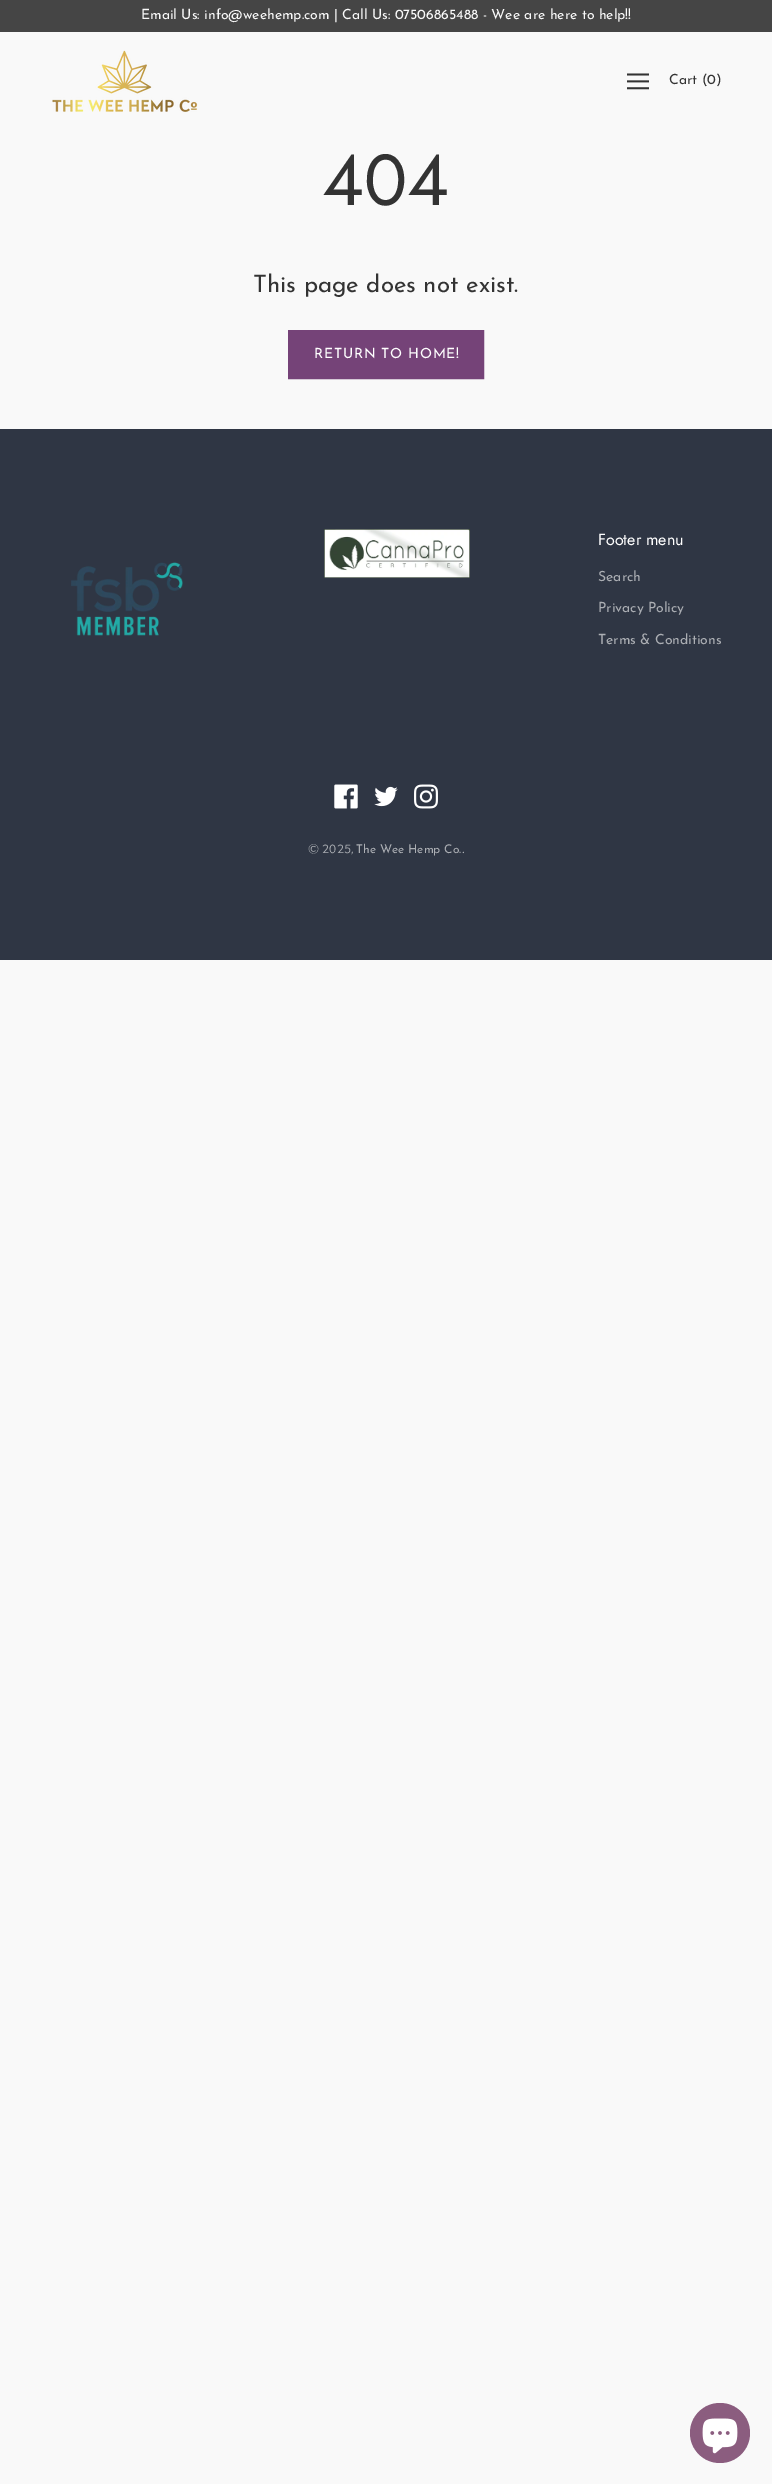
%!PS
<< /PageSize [772 2484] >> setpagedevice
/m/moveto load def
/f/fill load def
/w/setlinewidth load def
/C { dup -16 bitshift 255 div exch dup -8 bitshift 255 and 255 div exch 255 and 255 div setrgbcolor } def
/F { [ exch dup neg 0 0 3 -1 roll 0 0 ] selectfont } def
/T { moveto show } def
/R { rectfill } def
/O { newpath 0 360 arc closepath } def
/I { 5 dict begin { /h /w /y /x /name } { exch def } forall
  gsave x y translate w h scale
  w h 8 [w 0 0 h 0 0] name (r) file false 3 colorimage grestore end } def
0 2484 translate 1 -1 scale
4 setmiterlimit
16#F9F9F9 C
0 0 772 2484 R
16#454545 C
0 0 772 32 R
/JosefinSans-Regular 14 F
16#F9F9F9 C
(Email Us: info@weehemp.com | Call Us: 07506865488 - Wee are here to help!!) 141 19 T
(1.rgb) 52 50 146 62 I
(2.rgb) 627 73 22 17 I
16#333333 C
(Cart \(0\)) 669 84 T
/Jost-Regular 72 F
(404) 322 205 T
/JosefinSans-Regular 24 F
(This page does not exist.) 253 292 T
16#754378 C
2 w
289 331 194 47 rectstroke
290 332 192 45 R
/JosefinSans-Regular 14 F
16#FFFFFF C
314 358 m .75 0 (RETURN TO HOME!) ashow
16#2F3644 C
0 429 772 531 R
(3.rgb) 71 562 112 74 I
(4.rgb) 324 529 146 49 I
/Jost-Regular 16 F
16#FFFFFF C
(Footer menu) 598 545 T
/JosefinSans-Regular 14 F
16#ACAFB4 C
(Search) 598 581 T
(Privacy Policy) 598 612 T
(Terms & Conditions) 598 644 T
(5.rgb) 334 784 24 25 I
(6.rgb) 374 786 24 21 I
(7.rgb) 414 784 24 25 I
/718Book-Regular 12 F
(© 2025,) 308 853 T
/JosefinSans-Regular 12 F
(The Wee Hemp Co.) 356 853 T
/718Book-Regular 12 F
(.) 462 853 T
16#8B5D7F C
720 2433 30 O f
(8.rgb) 702 2418 36 36 I
showpage
